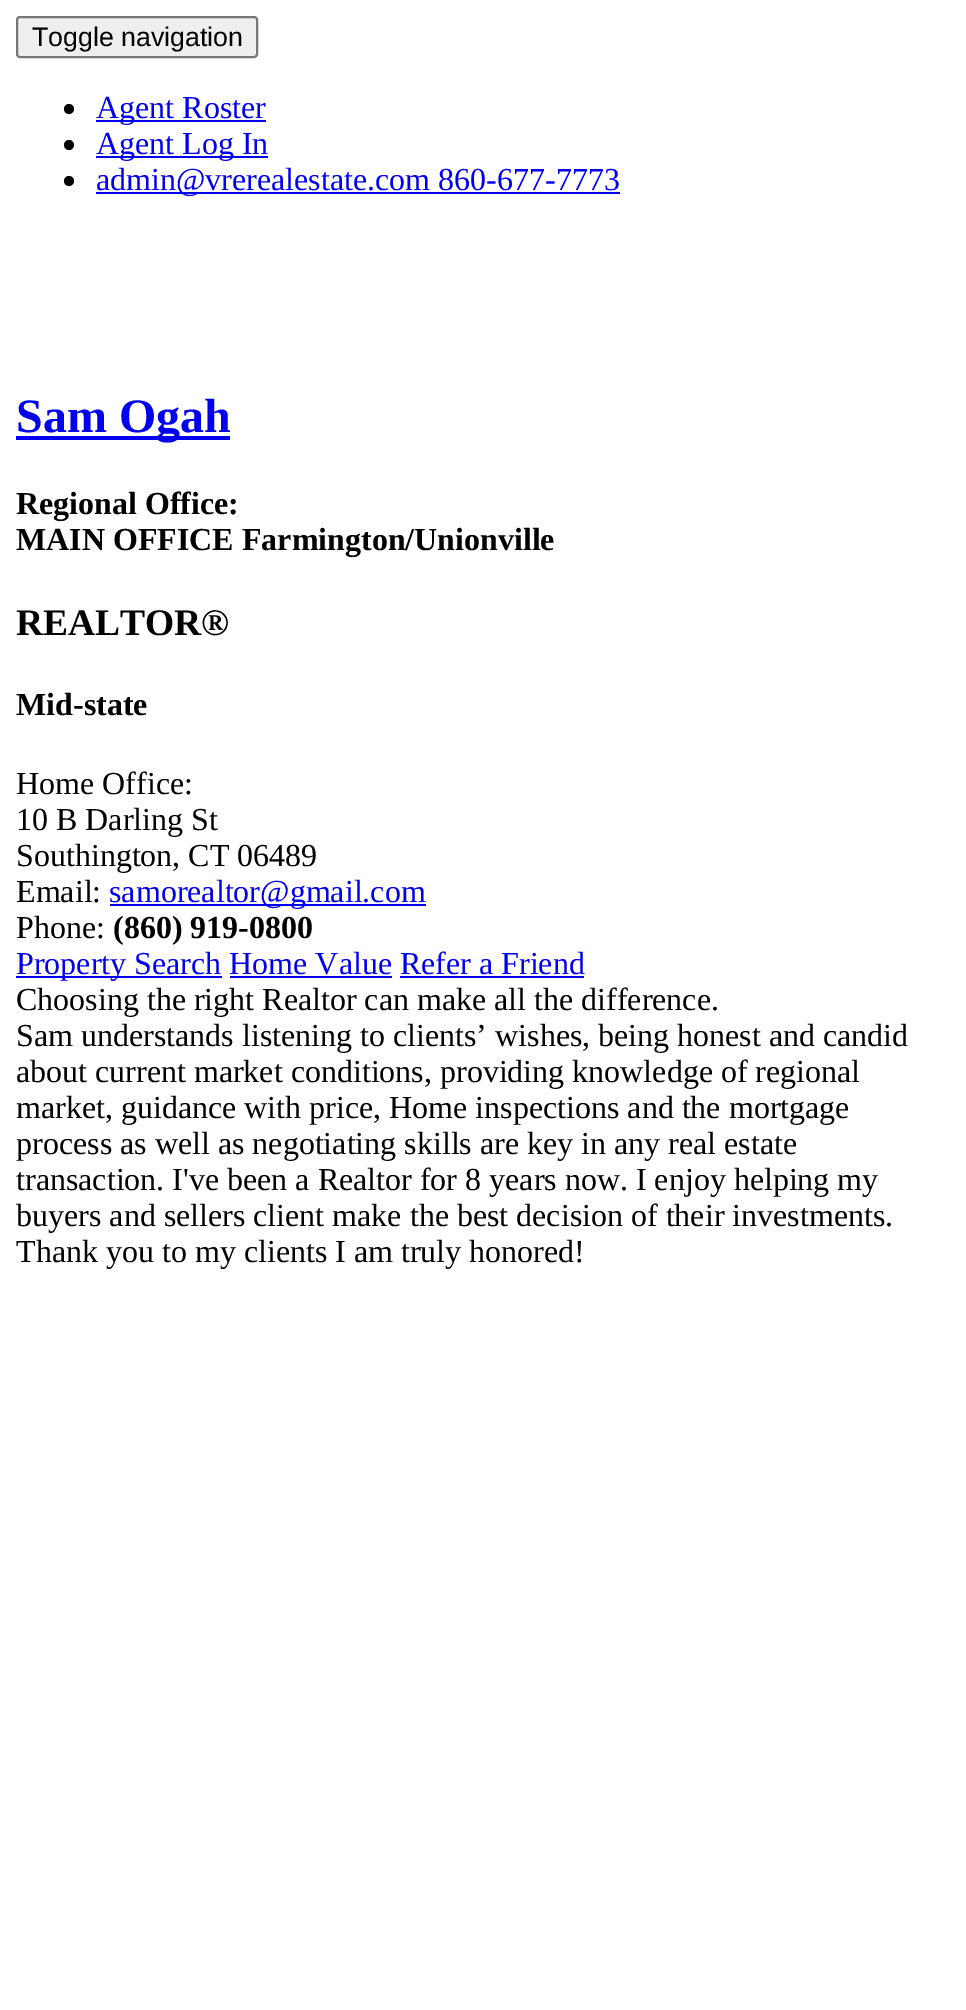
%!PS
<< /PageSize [966 2010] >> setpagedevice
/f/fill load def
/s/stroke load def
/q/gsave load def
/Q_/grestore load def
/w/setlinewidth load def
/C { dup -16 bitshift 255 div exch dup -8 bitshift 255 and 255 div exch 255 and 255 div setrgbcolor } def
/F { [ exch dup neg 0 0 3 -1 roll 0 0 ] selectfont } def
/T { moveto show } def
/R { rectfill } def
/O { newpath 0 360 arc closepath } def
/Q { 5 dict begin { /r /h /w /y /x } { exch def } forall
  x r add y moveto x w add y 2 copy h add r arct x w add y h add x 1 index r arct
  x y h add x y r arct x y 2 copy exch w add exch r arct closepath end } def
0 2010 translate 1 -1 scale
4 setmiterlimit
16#FFFFFF C
0 0 966 2010 R
16#EFEFEF C
17 17 240 40 3 Q q f Q_
16#767676 C
2 w
s
/LiberationSans-Regular 26.75 F
16#000000 C
(Toggle navigation) 32 46 T
69 109 5 O f
16#0000EE C
96 120 170 2 R
/LiberationSerif-Regular 32 F
(Agent Roster) 96 118 T
16#000000 C
69 145 5 O f
16#0000EE C
96 156 172 2 R
(Agent Log In) 96 154 T
16#000000 C
69 181 5 O f
16#0000EE C
96 192 524 2 R
(admin@vrerealestate.com 860-677-7773) 96 190 T
16 436 214 4 R
/LiberationSerif-Bold 48 F
(Sam Ogah) 16 432 T
/LiberationSerif-Bold 32 F
16#000000 C
(Regional Office:) 16 514 T
(MAIN OFFICE Farmington/Unionville) 16 550 T
/LiberationSerif-Bold 37.5 F
(REALTOR®) 16 635 T
/LiberationSerif-Bold 32 F
(Mid-state) 16 715 T
/LiberationSerif-Regular 32 F
(Home Office:) 16 794 T
(10 B Darling St) 16 830 T
(Southington, CT 06489) 16 866 T
(Email:) 16 902 T
16#0000EE C
110 904 316 2 R
(samorealtor@gmail.com) 109 902 T
16#000000 C
(Phone:) 16 938 T
/LiberationSerif-Bold 32 F
(\(860\) 919-0800) 113 938 T
16#0000EE C
16 976 206 2 R
/LiberationSerif-Regular 32 F
(Property Search Home Value Refer a Friend) 16 974 T
230 976 162 2 R
400 976 184 2 R
16#000000 C
(Choosing the right Realtor can make all the difference.) 16 1010 T
(Sam understands listening to clients’ wishes, being honest and candid) 16 1046 T
(about current market conditions, providing knowledge of regional) 16 1082 T
(market, guidance with price, Home inspections and the mortgage) 16 1118 T
(process as well as negotiating skills are key in any real estate) 16 1154 T
(transaction. I've been a Realtor for 8 years now. I enjoy helping my) 16 1190 T
(buyers and sellers client make the best decision of their investments.) 16 1226 T
(Thank you to my clients I am truly honored!) 16 1262 T
showpage
